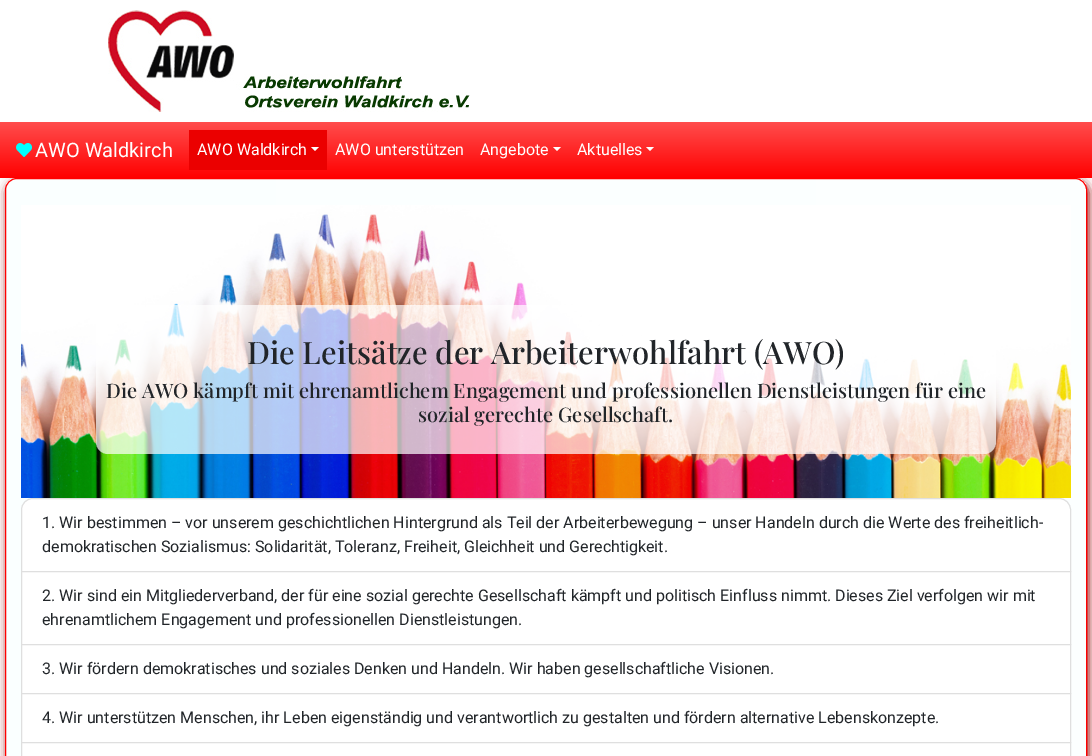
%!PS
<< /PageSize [1092 756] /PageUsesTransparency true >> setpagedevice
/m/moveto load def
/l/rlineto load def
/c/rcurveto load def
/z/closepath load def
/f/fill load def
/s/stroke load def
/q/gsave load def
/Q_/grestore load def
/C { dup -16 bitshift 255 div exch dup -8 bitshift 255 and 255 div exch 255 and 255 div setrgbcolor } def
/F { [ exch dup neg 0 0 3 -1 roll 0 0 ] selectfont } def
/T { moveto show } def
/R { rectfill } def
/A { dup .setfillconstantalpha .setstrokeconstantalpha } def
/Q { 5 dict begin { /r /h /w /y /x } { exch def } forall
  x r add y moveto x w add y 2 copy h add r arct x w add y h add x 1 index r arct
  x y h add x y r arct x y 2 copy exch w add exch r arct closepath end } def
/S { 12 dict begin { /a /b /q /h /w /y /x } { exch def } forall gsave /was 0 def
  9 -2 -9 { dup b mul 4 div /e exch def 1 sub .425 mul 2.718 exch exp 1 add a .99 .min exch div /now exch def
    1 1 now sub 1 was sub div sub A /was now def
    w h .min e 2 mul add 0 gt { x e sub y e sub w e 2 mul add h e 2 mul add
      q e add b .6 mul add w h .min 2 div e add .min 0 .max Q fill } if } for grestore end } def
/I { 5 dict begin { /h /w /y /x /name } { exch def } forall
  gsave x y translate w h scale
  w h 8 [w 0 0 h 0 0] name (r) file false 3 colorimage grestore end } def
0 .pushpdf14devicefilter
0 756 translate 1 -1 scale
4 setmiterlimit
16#FFFFFF C
0 0 1092 756 R
(1.rgb) 108 10 362 102 I
16#990000 C
7 181 1082 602 12 5 1 S
q 0 122 m 1092 0 l 0 56 l -1092 0 l z clip newpath
<< /ShadingType 2 /ColorSpace /DeviceRGB /Coords [546 122 546 178] /Extend [true true] /Function << /FunctionType 2 /Domain [0 1] /C0 [1 .302 .302] /C1 [1 0 0] /N 1 >> >> shfill Q_
(2.rgb) 16 143 16 14 I
/Roboto-Regular 20 F
16#FFFFFF C
(AWO Waldkirch) 35 157 T
16#EB0000 C
189 130 138 40 R
/Roboto-Regular 16 F
16#FFFFFF C
(AWO Waldkirch) 197 155 T
311 147 m 8 0 l -4 4 l z f
(AWO unterstützen) 335 155 T
(Angebote) 480 155 T
553 147 m 8 0 l -4 4 l z f
(Aktuelles) 577 155 T
646 147 m 8 0 l -4 4 l z f
q
5 178 1082 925 12 Q clip newpath
q 6 179 m 1080 0 l 0 577 l -1080 0 l z clip newpath
<< /ShadingType 2 /ColorSpace /DeviceRGB /Coords [6 641 1086 641] /Extend [true true] /Function << /FunctionType 2 /Domain [0 1] /C0 [.98 1 1] /C1 [.988 1 1] /N 1 >> >> shfill Q_
Q_
16#FF0000 C
5.5 178.5 1081 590 11.5 Q s
(3.rgb) 21 205 1050 293 I
0.7 A
16#FFFFFF C
96 305 900 149 12 Q f
/PlayfairDisplay-Medium 31 F
1 A
16#212529 C
(Die Leitsätze der Arbeiterwohlfahrt \(AWO\)) 247 364 T
/PlayfairDisplay-Medium 20 F
(Die AWO kämpft mit ehrenamtlichem Engagement und professionellen Dienstleistungen für eine) 106 398 T
(sozial gerechte Gesellschaft.) 418 422 T
16#FFFFFF C
33 498.5 m 1026 0 l 6.5 0 11.5 5 11.5 11.5 c 0 61.5 l -1049 0 l 0 -61.5 l 0 -6.5 5 -11.5 11.5 -11.5 c z q f Q_
16#DFDFDF C
s
/Roboto-Regular 16 F
16#212529 C
(1. Wir bestimmen – vor unserem geschichtlichen Hintergrund als Teil der Arbeiterbewegung – unser Handeln durch die Werte des freiheitlich-) 42 528 T
(demokratischen Sozialismus: Solidarität, Toleranz, Freiheit, Gleichheit und Gerechtigkeit.) 42 552 T
16#FFFFFF C
21.5 571.5 m 1049 0 l 0 73 l -1049 0 l z q f Q_
16#DFDFDF C
s
16#212529 C
(2. Wir sind ein Mitgliederverband, der für eine sozial gerechte Gesellschaft kämpft und politisch Einfluss nimmt. Dieses Ziel verfolgen wir mit) 42 601 T
(ehrenamtlichem Engagement und professionellen Dienstleistungen.) 42 625 T
16#FFFFFF C
21.5 644.5 m 1049 0 l 0 49 l -1049 0 l z q f Q_
16#DFDFDF C
s
16#212529 C
(3. Wir fördern demokratisches und soziales Denken und Handeln. Wir haben gesellschaftliche Visionen.) 42 674 T
16#FFFFFF C
21.5 693.5 m 1049 0 l 0 49 l -1049 0 l z q f Q_
16#DFDFDF C
s
16#212529 C
(4. Wir unterstützen Menschen, ihr Leben eigenständig und verantwortlich zu gestalten und fördern alternative Lebenskonzepte.) 42 723 T
16#FFFFFF C
21.5 742.5 m 1049 0 l 0 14 l -1049 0 l z q f Q_
16#DFDFDF C
s
.poppdf14devicefilter showpage
